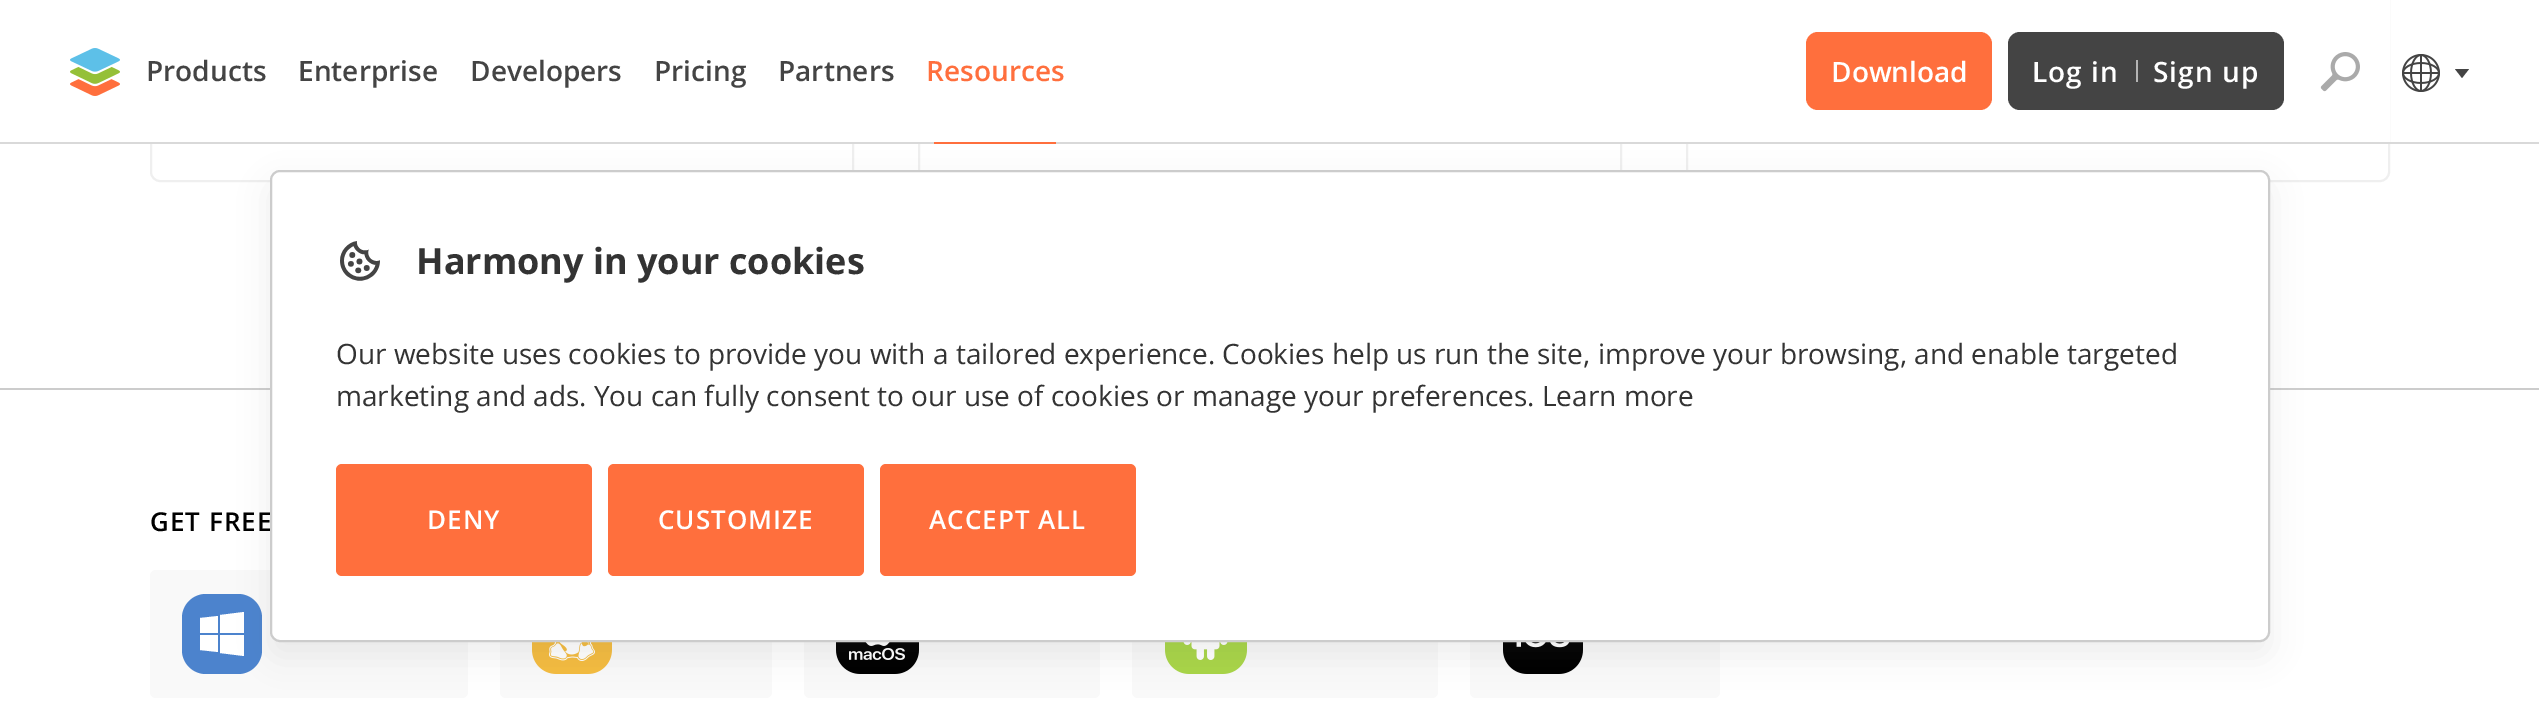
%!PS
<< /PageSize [2539 713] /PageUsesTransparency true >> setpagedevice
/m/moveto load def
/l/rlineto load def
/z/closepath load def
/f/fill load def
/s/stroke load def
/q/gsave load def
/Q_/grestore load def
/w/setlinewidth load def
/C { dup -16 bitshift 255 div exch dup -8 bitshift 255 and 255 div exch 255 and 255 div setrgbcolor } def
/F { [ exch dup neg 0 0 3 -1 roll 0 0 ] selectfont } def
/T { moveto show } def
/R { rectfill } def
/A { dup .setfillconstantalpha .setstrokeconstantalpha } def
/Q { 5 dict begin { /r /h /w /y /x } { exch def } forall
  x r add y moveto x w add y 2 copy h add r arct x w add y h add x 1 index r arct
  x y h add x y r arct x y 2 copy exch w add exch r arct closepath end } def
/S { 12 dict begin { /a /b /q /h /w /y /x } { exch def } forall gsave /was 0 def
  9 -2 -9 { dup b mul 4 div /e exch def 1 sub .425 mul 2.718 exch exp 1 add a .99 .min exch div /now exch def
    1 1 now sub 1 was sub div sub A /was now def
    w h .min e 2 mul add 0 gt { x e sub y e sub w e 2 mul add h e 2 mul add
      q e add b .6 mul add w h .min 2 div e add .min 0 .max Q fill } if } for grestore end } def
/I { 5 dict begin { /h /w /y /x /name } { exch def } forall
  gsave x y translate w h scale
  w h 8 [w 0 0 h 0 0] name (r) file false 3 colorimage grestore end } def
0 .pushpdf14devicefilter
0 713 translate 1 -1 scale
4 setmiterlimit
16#FFFFFF C
0 0 2539 713 R
16#EFEFEF C
2 w
151 -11 702 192 9 Q s
919 -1 702 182 rectstroke
1687 -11 702 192 9 Q s
16#CCCCCC C
0 388 2539 2 R
16#F9F9F9 C
150 570 318 128 6 Q f
16#4C83CD C
182 594 80 80 24 Q f
16#FFFFFF C
200 618 m 18 -2 l 0 17 l -18 0 l z 218 635 m 0 17 l -18 -2 l 0 -15 l z 220 615 m 24 -3 l 0 21 l -24 0 l z 244 635 m 0 21 l -24 -3 l 0 -18 l z f
16#F9F9F9 C
500 570 272 128 6 Q f
(4.rgb) 532 642 80 32 I
804 570 296 128 6 Q f
(5.rgb) 836 642 83 32 I
1132 570 306 128 6 Q f
(6.rgb) 1165 642 82 32 I
1470 570 250 128 6 Q f
(7.rgb) 1503 642 80 32 I
16#555555 C
270 184 2000 472 10 15 .1 S
16#FFFFFF C
150 0 2240 142 R
16#D9D9D9 C
0 142 2539 2 R
(1.rgb) 70 48 50 48 I
/OpenSans-SemiBold 28 F
16#444444 C
(Products) 146 81 T
(Enterprise) 298 81 T
(Developers) 470 81 T
(Pricing) 654 81 T
(Partners) 778 81 T
16#FF6F3D C
(Resources) 926 81 T
934 142 122 2 R
1806 32 186 78 12 Q f
16#FFFFFF C
(Download) 1831 82 T
16#444444 C
2008 32 276 78 12 Q f
16#FFFFFF C
2032 82 m 1 0 (Log in) ashow
16#B4B4B4 C
2136 60 2 22 R
16#FFFFFF C
2153 82 m 1 0 (Sign up) ashow
(2.rgb) 2320 52 40 40 I
(3.rgb) 2402 54 38 38 I
16#444444 C
2462 78 m -7 -9 l 14 0 l z f
/OpenSans-SemiBold 26 F
16#000000 C
150 531 m 1 0 (GET FREE) ashow
16#FFFFFF C
271 171 1998 470 9 Q q f Q_
16#CCCCCC C
s
(8.rgb) 340 241 40 40 I
/OpenSans-Bold 36 F
16#333333 C
(Harmony in your cookies) 416 274 T
/OpenSans-Regular 28 F
(Our website uses cookies to provide you with a tailored experience. Cookies help us run the site, improve your browsing, and enable targeted) 336 364 T
(marketing and ads. You can fully consent to our use of cookies or manage your preferences. Learn more) 336 406 T
16#FF6F3D C
336 464 256 112 6 Q f
/OpenSans-SemiBold 26 F
16#FFFFFF C
427 529 m 1 0 (DENY) ashow
16#FF6F3D C
608 464 256 112 6 Q f
16#FFFFFF C
658 529 m 1 0 (CUSTOMIZE) ashow
16#FF6F3D C
880 464 256 112 6 Q f
16#FFFFFF C
929 529 m 1 0 (ACCEPT ALL) ashow
.poppdf14devicefilter showpage
